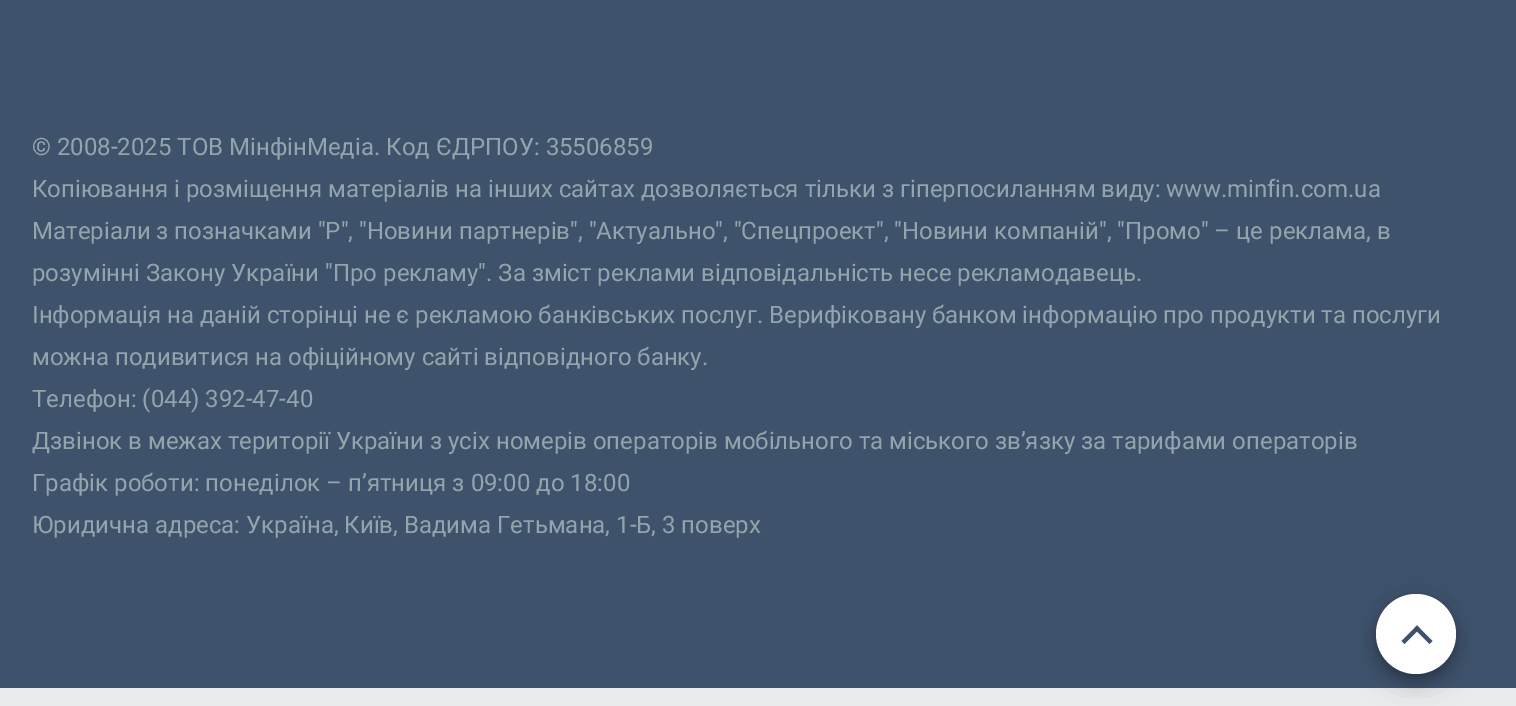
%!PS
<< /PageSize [1516 706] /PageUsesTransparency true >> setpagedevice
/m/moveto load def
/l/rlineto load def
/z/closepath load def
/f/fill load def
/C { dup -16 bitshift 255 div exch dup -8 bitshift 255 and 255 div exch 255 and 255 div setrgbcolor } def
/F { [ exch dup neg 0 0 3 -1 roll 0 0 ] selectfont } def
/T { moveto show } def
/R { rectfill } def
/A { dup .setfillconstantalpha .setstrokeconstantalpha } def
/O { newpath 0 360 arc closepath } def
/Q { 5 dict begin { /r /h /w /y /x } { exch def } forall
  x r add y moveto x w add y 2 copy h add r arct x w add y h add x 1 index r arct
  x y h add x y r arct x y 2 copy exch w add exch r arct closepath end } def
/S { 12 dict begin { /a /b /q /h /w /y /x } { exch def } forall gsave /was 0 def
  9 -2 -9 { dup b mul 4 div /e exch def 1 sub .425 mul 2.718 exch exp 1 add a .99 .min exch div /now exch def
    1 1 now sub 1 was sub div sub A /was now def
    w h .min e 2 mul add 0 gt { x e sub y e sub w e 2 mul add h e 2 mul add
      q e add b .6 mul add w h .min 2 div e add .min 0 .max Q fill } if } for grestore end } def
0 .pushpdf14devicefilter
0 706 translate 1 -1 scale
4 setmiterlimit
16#E9EBEE C
0 0 1516 706 R
16#3E526B C
0 0 1516 688 R
/Roboto-Regular 24 F
16#93A4AC C
(© 2008-2025 ТОВ МiнфiнМедiа. Код ЄДРПОУ: 35506859) 32 155 T
(Копіювання і розміщення матеріалів на інших сайтах дозволяється тільки з гіперпосиланням виду: www.minfin.com.ua) 32 197 T
(Матеріали з позначками "Р", "Новини партнерів", "Актуально", "Спецпроект", "Новини компаній", "Промо" – це реклама, в) 32 239 T
(розумінні Закону України "Про рекламу". За зміст реклами відповідальність несе рекламодавець.) 32 281 T
(Інформація на даній сторінці не є рекламою банківських послуг. Верифіковану банком інформацію про продукти та послуги) 32 323 T
(можна подивитися на офіційному сайті відповідного банку.) 32 365 T
(Телефон: \(044\) 392-47-40) 32 407 T
(Дзвінок в межах території України з усіх номерів операторів мобільного та міського зв’язку за тарифами операторів) 32 449 T
(Графік роботи: понеділок – п’ятниця з 09:00 до 18:00) 32 491 T
(Юридична адреса: Україна, Київ, Вадима Гетьмана, 1-Б, 3 поверх) 32 533 T
16#000000 C
1376 596 80 80 40 18 .12 S
1376 606 80 80 40 10 .14 S
1378 602 76 76 38 5 .2 S
16#FFFFFF C
1416 634 40 O f
16#3E526B C
1417 625.5 m 15.5 15.5 l -3 3 l -15.5 -15.5 l z f
1417 625.5 m 3 3 l -15.5 15.5 l -3 -3 l z f
.poppdf14devicefilter showpage
